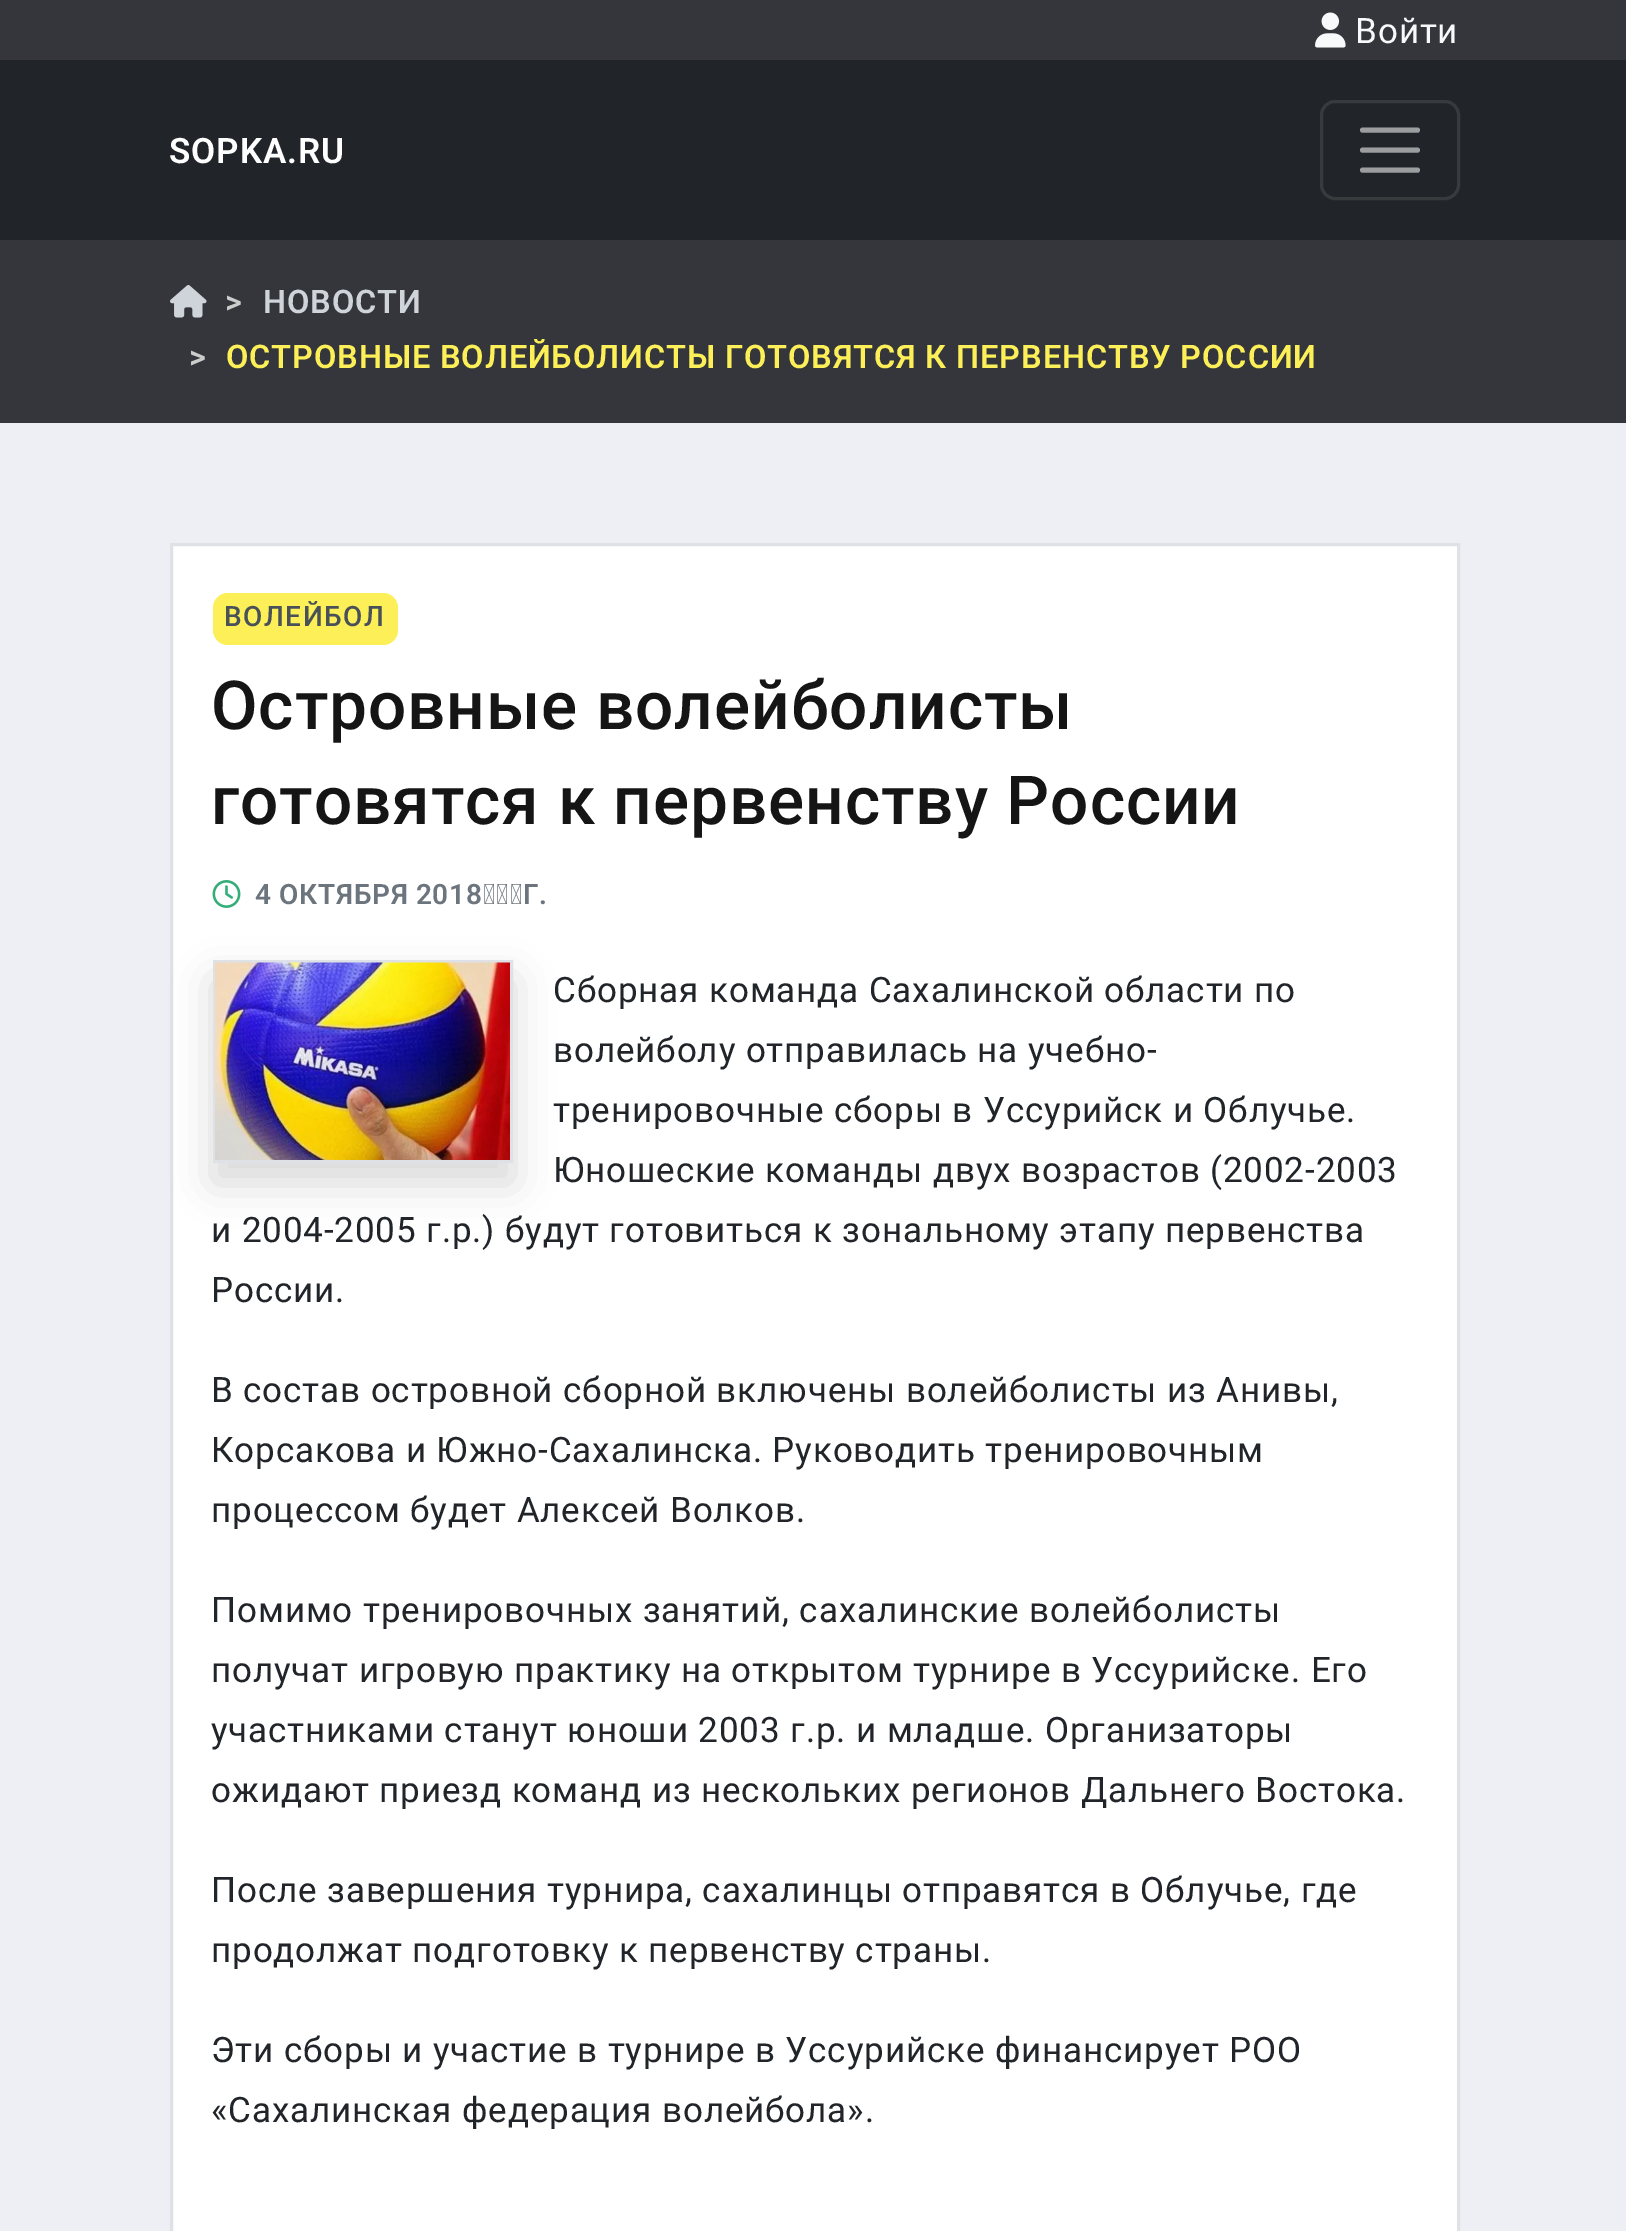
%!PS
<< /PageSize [1626 2231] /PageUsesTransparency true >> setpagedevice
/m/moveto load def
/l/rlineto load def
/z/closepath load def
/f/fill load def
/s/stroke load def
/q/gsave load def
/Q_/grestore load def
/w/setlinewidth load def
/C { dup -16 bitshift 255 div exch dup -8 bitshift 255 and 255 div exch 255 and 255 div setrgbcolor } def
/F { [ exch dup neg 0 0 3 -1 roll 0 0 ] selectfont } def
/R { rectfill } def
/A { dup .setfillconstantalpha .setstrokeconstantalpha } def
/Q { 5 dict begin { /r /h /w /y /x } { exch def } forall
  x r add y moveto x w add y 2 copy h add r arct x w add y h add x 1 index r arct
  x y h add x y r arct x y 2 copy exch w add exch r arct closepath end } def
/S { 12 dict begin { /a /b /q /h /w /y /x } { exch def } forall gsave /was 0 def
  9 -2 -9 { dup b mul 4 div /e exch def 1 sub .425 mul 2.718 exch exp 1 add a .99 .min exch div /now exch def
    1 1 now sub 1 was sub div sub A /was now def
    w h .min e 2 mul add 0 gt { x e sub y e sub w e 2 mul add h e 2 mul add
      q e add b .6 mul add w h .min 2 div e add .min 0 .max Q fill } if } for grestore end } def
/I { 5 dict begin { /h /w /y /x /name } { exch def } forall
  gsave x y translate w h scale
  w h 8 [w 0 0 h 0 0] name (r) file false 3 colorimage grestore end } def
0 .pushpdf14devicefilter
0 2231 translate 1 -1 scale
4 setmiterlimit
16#EEEFF4 C
0 0 1626 2231 R
16#212529 C
0 60 1626 180 R
16#35363B C
0 0 1626 60 R
(1.rgb) 1315 12 31 36 I
/Roboto-Regular 35 F
16#F8F9FA C
1355 43 m .88 0 (Войти) ashow
/Roboto-SemiBold 35 F
16#FFFFFF C
169 163 m .88 0 (SOPKA.RU) ashow
16#373B3E C
3 w
1321.5 101.5 137 97 13.5 Q s
16#9B9D9F C
5 w
1 setlinecap
1362.5 130 m 55 0 l 1362.5 150 m 55 0 l 1362.5 170 m 55 0 l s
16#35363B C
0 240 1626 183 R
(2.rgb) 170 285 37 33 I
/Roboto-SemiBold 32.5 F
16#CCCCCC C
225 313 m .88 0 (>) ashow
16#CED4DA C
263 313 m .88 0 (НОВОСТИ) ashow
16#CCCCCC C
189 368 m .88 0 (>) ashow
16#FCEF57 C
226 368 m .88 0 (ОСТРОВНЫЕ ВОЛЕЙБОЛИСТЫ ГОТОВЯТСЯ К ПЕРВЕНСТВУ РОССИИ) ashow
16#FFFFFF C
171.5 544.5 m 1287 0 l 0 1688 l -1287 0 l z q f Q_
16#DEE2E6 C
3 w
0 setlinecap
s
16#FCEF57 C
213 593 185 52 15 Q f
/Roboto-Medium 28 F
16#495057 C
224 626 m 1.5 0 (ВОЛЕЙБОЛ) ashow
/Roboto-Medium 67.6 F
16#151515 C
211 729 m .88 0 (Островные волейболисты) ashow
211 824 m .88 0 (готовятся к первенству России) ashow
(3.rgb) 212 880 29 28 I
/Roboto-SemiBold 28 F
16#6C757D C
255 904 m -1 0 32 .88 0 (4 ОКТЯБРЯ 2018 Г.) awidthshow
16#000000 C
213 980 300 203 0 20 .15 S
16#DEE2E6 C
214.5 961.5 297 200 rectstroke
(4.rgb) 215 962 295 198 I
/Roboto-Regular 35 F
16#212529 C
553 1002 m .88 0 (Сборная команда Сахалинской области по) ashow
553 1062 m .88 0 (волейболу отправилась на учебно-) ashow
553 1122 m .88 0 (тренировочные сборы в Уссурийск и Облучье.) ashow
553 1182 m .88 0 (Юношеские команды двух возрастов \(2002-2003) ashow
211 1242 m .88 0 (и 2004-2005 г.р.\) будут готовиться к зональному этапу первенства) ashow
211 1302 m .88 0 (России.) ashow
211 1402 m .88 0 (В состав островной сборной включены волейболисты из Анивы,) ashow
211 1462 m .88 0 (Корсакова и Южно-Сахалинска. Руководить тренировочным) ashow
211 1522 m .88 0 (процессом будет Алексей Волков.) ashow
211 1622 m .88 0 (Помимо тренировочных занятий, сахалинские волейболисты) ashow
211 1682 m .88 0 (получат игровую практику на открытом турнире в Уссурийске. Его) ashow
211 1742 m .88 0 (участниками станут юноши 2003 г.р. и младше. Организаторы) ashow
211 1802 m .88 0 (ожидают приезд команд из нескольких регионов Дальнего Востока.) ashow
211 1902 m .88 0 (После завершения турнира, сахалинцы отправятся в Облучье, где) ashow
211 1962 m .88 0 (продолжат подготовку к первенству страны.) ashow
211 2062 m .88 0 (Эти сборы и участие в турнире в Уссурийске финансирует РОО) ashow
211 2122 m .88 0 («Сахалинская федерация волейбола».) ashow
.poppdf14devicefilter showpage
